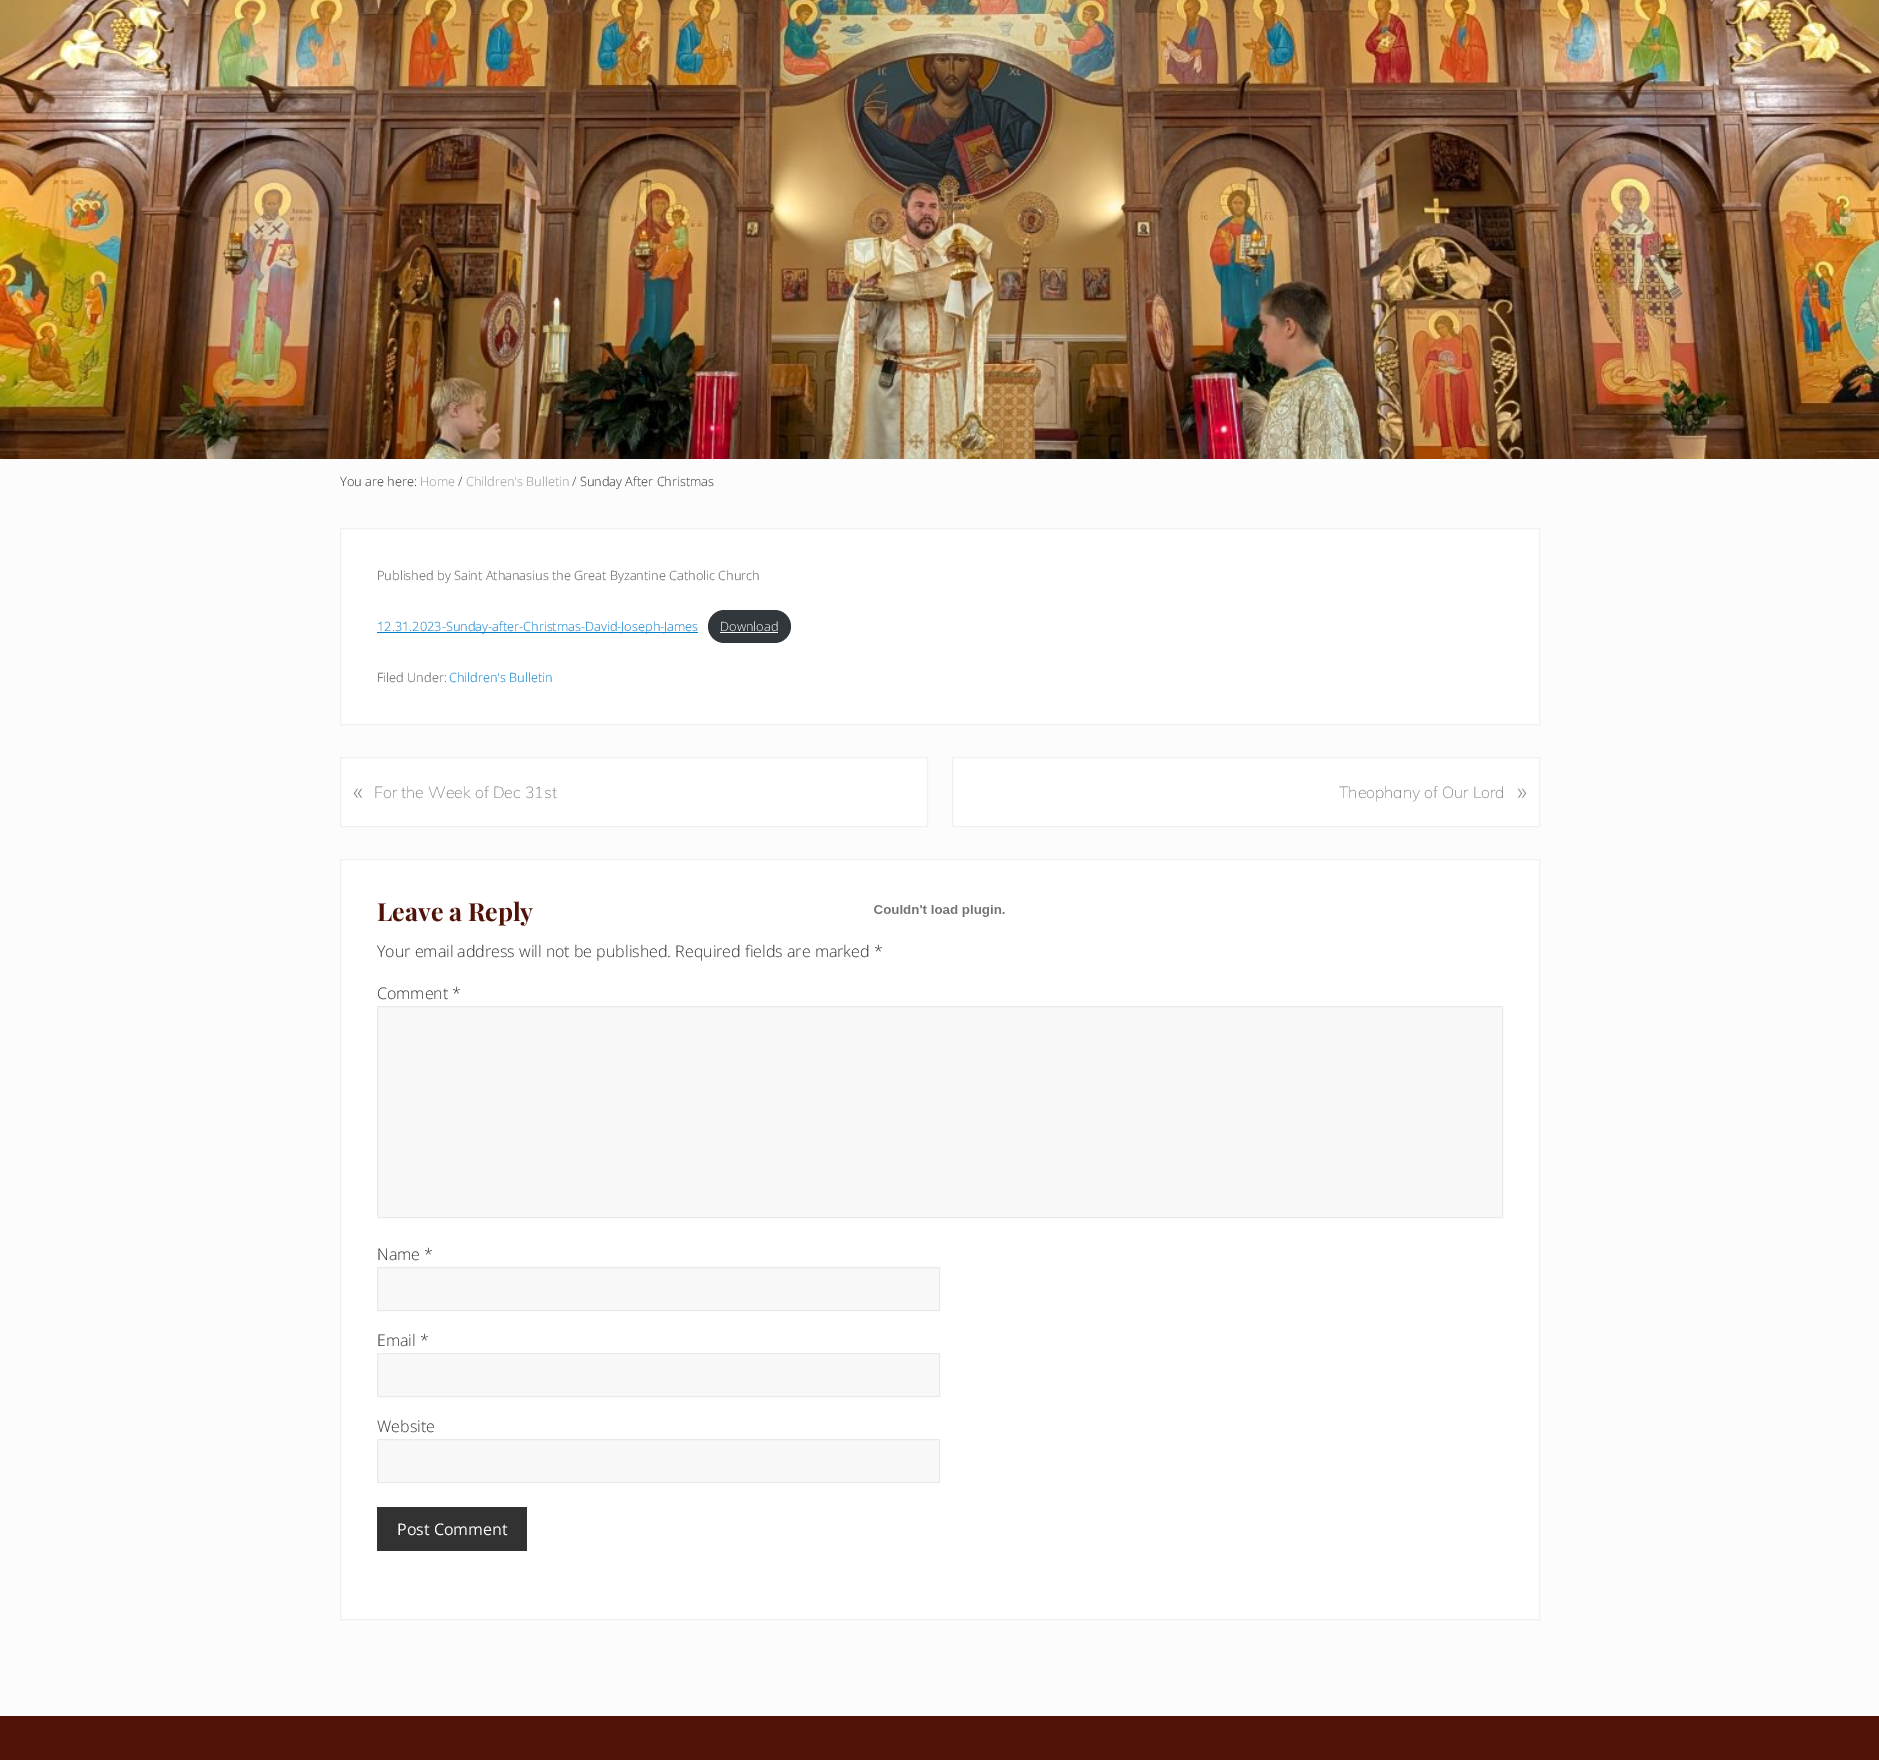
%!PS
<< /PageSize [1879 1760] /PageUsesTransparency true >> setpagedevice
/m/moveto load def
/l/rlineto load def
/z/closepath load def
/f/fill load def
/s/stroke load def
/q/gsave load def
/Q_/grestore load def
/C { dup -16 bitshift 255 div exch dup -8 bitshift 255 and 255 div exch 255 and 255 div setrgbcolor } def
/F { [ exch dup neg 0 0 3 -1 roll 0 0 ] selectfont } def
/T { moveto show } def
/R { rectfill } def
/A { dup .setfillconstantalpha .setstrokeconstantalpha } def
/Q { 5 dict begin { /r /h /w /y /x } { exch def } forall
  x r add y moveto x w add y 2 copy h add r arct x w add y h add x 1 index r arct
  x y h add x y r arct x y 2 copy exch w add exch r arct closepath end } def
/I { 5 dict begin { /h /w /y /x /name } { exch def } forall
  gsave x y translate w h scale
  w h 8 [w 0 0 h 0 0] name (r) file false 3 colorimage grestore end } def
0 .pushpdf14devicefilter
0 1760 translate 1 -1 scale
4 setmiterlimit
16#FCFCFC C
0 0 1879 1760 R
(1.rgb) 0 0 1879 459 I
/OpenSans-Light 12.8 F
16#323232 C
(You are here:) 340 486 T
16#979797 C
(Home) 420 486 T
16#323232 C
(/) 458 486 T
16#979797 C
(Children's Bulletin) 466 486 T
16#323232 C
(/ Sunday After Christmas) 572 486 T
16#FFFFFF C
340.5 528.5 m 1199 0 l 0 196 l -1199 0 l z q f Q_
16#F0F0F0 C
s
16#555555 C
(Published by Saint Athanasius the Great Byzantine Catholic Church) 377 580 T
16#067CCC C
377 632 321 1 R
(12.31.2023-Sunday-after-Christmas-David-Joseph-James) 377 631 T
16#32373C C
708 610 83 33 16.5 Q f
16#FFFFFF C
(Download) 720 631 T
720 632 58 1 R
340.5 859.5 m 1199 0 l 0 760 l -1199 0 l z q f Q_
16#F0F0F0 C
s
(2.rgb) 874 905 131 12 I
16#555555 C
(Filed Under:) 377 682 T
16#067CCC C
(Children's Bulletin) 449 682 T
16#FFFFFF C
340.5 757.5 m 587 0 l 0 69 l -587 0 l z q f Q_
16#F0F0F0 C
s
/Muli-ExtraLight 25 F
16#808080 C
(«) 353 800 T
/Muli-ExtraLight 16 F
(For the Week of Dec 31st) 374 798 T
16#FFFFFF C
952.5 757.5 m 587 0 l 0 69 l -587 0 l z q f Q_
16#F0F0F0 C
s
16#808080 C
(Theophany of Our Lord) 1339 798 T
/Muli-ExtraLight 25 F
(») 1517 800 T
/PlayfairDisplay-Bold 25 F
16#511208 C
(Leave a Reply) 377 921 T
/OpenSans-Light 16 F
16#323232 C
(Your email address will not be published. Required fields are marked *) 377 957 T
(Comment *) 377 999 T
16#F8F8F8 C
377 1006 1126 212 3 Q f
0.06 A
16#000000 C
377.5 1006.5 1125 211 rectstroke
1 A
16#323232 C
(Name *) 377 1260 T
16#F8F8F8 C
377 1267 563 44 3 Q f
0.06 A
16#000000 C
377.5 1267.5 562 43 rectstroke
1 A
16#323232 C
(Email *) 377 1346 T
16#F8F8F8 C
377 1353 563 44 3 Q f
0.06 A
16#000000 C
377.5 1353.5 562 43 rectstroke
1 A
16#323232 C
(Website) 377 1432 T
16#F8F8F8 C
377 1439 563 44 3 Q f
0.06 A
16#000000 C
377.5 1439.5 562 43 rectstroke
1 A
16#323232 C
377 1507 150 44 R
/OpenSans-Regular 16 F
16#FFFFFF C
(Post Comment) 397 1535 T
16#511208 C
0 1716 1879 44 R
.poppdf14devicefilter showpage
